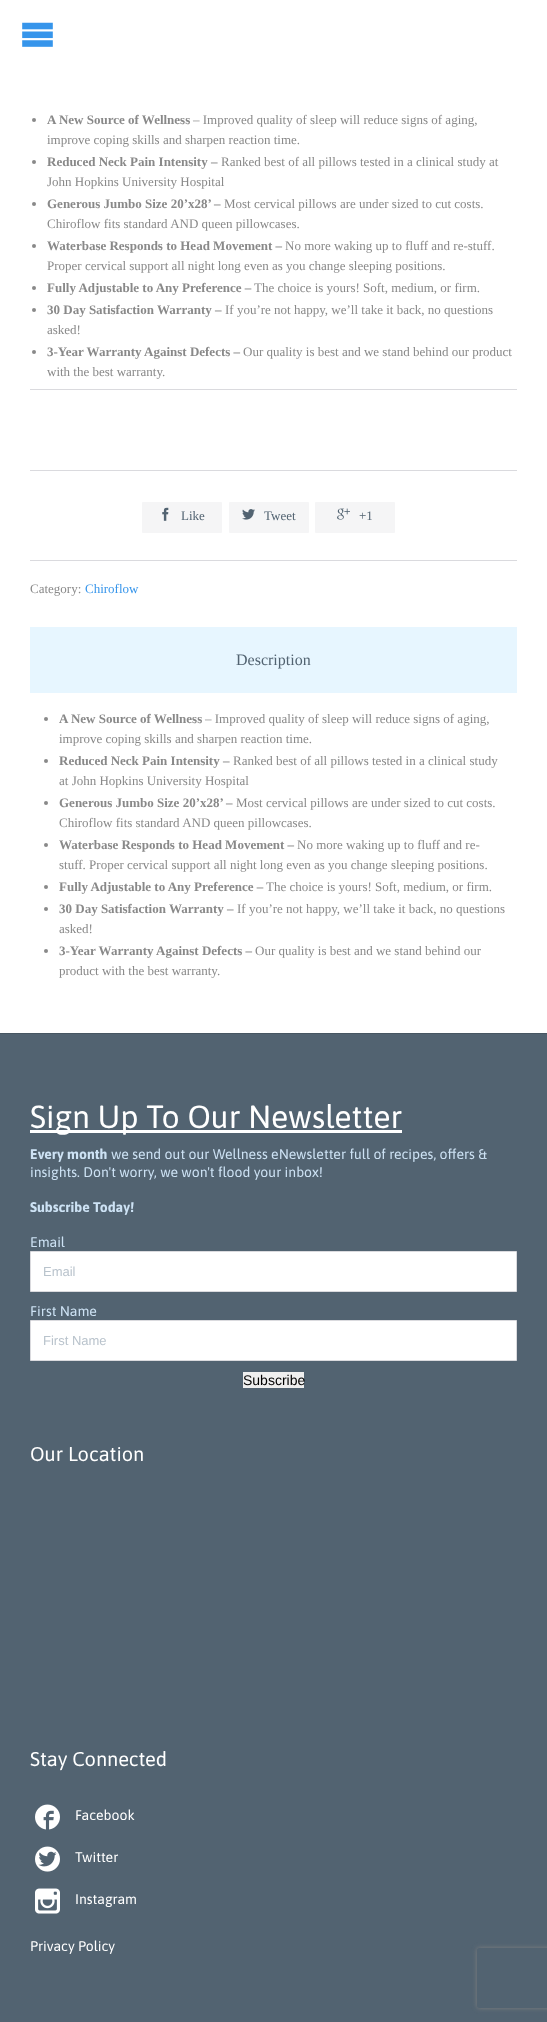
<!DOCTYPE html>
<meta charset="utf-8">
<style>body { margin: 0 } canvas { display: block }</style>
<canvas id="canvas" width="547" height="2022"></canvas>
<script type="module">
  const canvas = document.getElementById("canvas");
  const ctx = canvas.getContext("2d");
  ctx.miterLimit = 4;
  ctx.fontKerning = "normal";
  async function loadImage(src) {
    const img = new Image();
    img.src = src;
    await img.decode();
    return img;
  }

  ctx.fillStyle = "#ffffff";
  ctx.fillRect(0, 0, 547, 2022);
  ctx.drawImage(await loadImage("img1.png"), 22, 22, 31, 25);
  ctx.fillStyle = "#898989";
  ctx.beginPath();
  ctx.arc(34, 120, 2, 0, Math.PI * 2);
  ctx.fill();
  ctx.font = "bold 13px Liberation Serif";
  ctx.fillText("A New Source of Wellness", 47, 124);
  ctx.font = "13px Liberation Serif";
  ctx.fillText("– Improved quality of sleep will reduce signs of aging,", 193, 124);
  ctx.fillText("improve coping skills and sharpen reaction time.", 47, 144);
  ctx.beginPath();
  ctx.arc(34, 162, 2, 0, Math.PI * 2);
  ctx.fill();
  ctx.font = "bold 13px Liberation Serif";
  ctx.fillText("Reduced Neck Pain Intensity –", 47, 166);
  ctx.font = "13px Liberation Serif";
  ctx.fillText("Ranked best of all pillows tested in a clinical study at", 221, 166);
  ctx.fillText("John Hopkins University Hospital", 47, 186);
  ctx.beginPath();
  ctx.arc(34, 204, 2, 0, Math.PI * 2);
  ctx.fill();
  ctx.font = "bold 13px Liberation Serif";
  ctx.fillText("Generous Jumbo Size 20’x28’ –", 47, 208);
  ctx.font = "13px Liberation Serif";
  ctx.fillText("Most cervical pillows are under sized to cut costs.", 224, 208);
  ctx.fillText("Chiroflow fits standard AND queen pillowcases.", 47, 228);
  ctx.beginPath();
  ctx.arc(34, 246, 2, 0, Math.PI * 2);
  ctx.fill();
  ctx.font = "bold 13px Liberation Serif";
  ctx.fillText("Waterbase Responds to Head Movement –", 47, 250);
  ctx.font = "13px Liberation Serif";
  ctx.fillText("No more waking up to fluff and re-stuff.", 285, 250);
  ctx.fillText("Proper cervical support all night long even as you change sleeping positions.", 47, 270);
  ctx.beginPath();
  ctx.arc(34, 288, 2, 0, Math.PI * 2);
  ctx.fill();
  ctx.font = "bold 13px Liberation Serif";
  ctx.fillText("Fully Adjustable to Any Preference –", 47, 292);
  ctx.font = "13px Liberation Serif";
  ctx.fillText("The choice is yours! Soft, medium, or firm.", 254, 292);
  ctx.beginPath();
  ctx.arc(34, 310, 2, 0, Math.PI * 2);
  ctx.fill();
  ctx.font = "bold 13px Liberation Serif";
  ctx.fillText("30 Day Satisfaction Warranty –", 47, 314);
  ctx.font = "13px Liberation Serif";
  ctx.fillText("If you’re not happy, we’ll take it back, no questions", 225, 314);
  ctx.fillText("asked!", 47, 334);
  ctx.beginPath();
  ctx.arc(34, 352, 2, 0, Math.PI * 2);
  ctx.fill();
  ctx.font = "bold 13px Liberation Serif";
  ctx.fillText("3-Year Warranty Against Defects –", 47, 356);
  ctx.font = "13px Liberation Serif";
  ctx.fillText("Our quality is best and we stand behind our product", 243, 356);
  ctx.fillText("with the best warranty.", 47, 376);
  ctx.fillStyle = "#dadade";
  ctx.fillRect(30, 389, 487, 1);
  ctx.fillRect(30, 470, 487, 1);
  ctx.fillStyle = "#f5f5f6";
  ctx.beginPath();
  ctx.roundRect(142, 502, 80, 31, 1);
  ctx.fill();
  ctx.drawImage(await loadImage("img2.png"), 162, 507, 7, 14);
  ctx.fillStyle = "#526371";
  ctx.fillText("Like", 181, 520);
  ctx.fillStyle = "#f5f5f6";
  ctx.beginPath();
  ctx.roundRect(229, 502, 80, 31, 1);
  ctx.fill();
  ctx.drawImage(await loadImage("img3.png"), 242, 509, 13, 11);
  ctx.fillStyle = "#526371";
  ctx.fillText("Tweet", 264, 520);
  ctx.fillStyle = "#f5f5f6";
  ctx.beginPath();
  ctx.roundRect(315, 502, 80, 31, 1);
  ctx.fill();
  ctx.drawImage(await loadImage("img4.png"), 337, 508, 13, 12);
  ctx.fillStyle = "#526371";
  ctx.fillText("+1", 359, 520);
  ctx.fillStyle = "#dadade";
  ctx.fillRect(30, 560, 487, 1);
  ctx.fillStyle = "#898989";
  ctx.fillText("Category:", 30, 593);
  ctx.fillStyle = "#3695eb";
  ctx.fillText("Chiroflow", 85, 593);
  ctx.fillStyle = "#e7f6ff";
  ctx.fillRect(30, 627, 487, 66);
  ctx.font = "16px Liberation Serif";
  ctx.fillStyle = "#526371";
  ctx.fillText("Description", 236, 665);
  ctx.fillStyle = "#898989";
  ctx.beginPath();
  ctx.arc(46, 719, 2, 0, Math.PI * 2);
  ctx.fill();
  ctx.font = "bold 13px Liberation Serif";
  ctx.fillText("A New Source of Wellness", 59, 723);
  ctx.font = "13px Liberation Serif";
  ctx.fillText("– Improved quality of sleep will reduce signs of aging,", 205, 723);
  ctx.fillText("improve coping skills and sharpen reaction time.", 59, 743);
  ctx.beginPath();
  ctx.arc(46, 761, 2, 0, Math.PI * 2);
  ctx.fill();
  ctx.font = "bold 13px Liberation Serif";
  ctx.fillText("Reduced Neck Pain Intensity –", 59, 765);
  ctx.font = "13px Liberation Serif";
  ctx.fillText("Ranked best of all pillows tested in a clinical study", 233, 765);
  ctx.fillText("at John Hopkins University Hospital", 59, 785);
  ctx.beginPath();
  ctx.arc(46, 803, 2, 0, Math.PI * 2);
  ctx.fill();
  ctx.font = "bold 13px Liberation Serif";
  ctx.fillText("Generous Jumbo Size 20’x28’ –", 59, 807);
  ctx.font = "13px Liberation Serif";
  ctx.fillText("Most cervical pillows are under sized to cut costs.", 236, 807);
  ctx.fillText("Chiroflow fits standard AND queen pillowcases.", 59, 827);
  ctx.beginPath();
  ctx.arc(46, 845, 2, 0, Math.PI * 2);
  ctx.fill();
  ctx.font = "bold 13px Liberation Serif";
  ctx.fillText("Waterbase Responds to Head Movement –", 59, 849);
  ctx.font = "13px Liberation Serif";
  ctx.fillText("No more waking up to fluff and re-", 297, 849);
  ctx.fillText("stuff. Proper cervical support all night long even as you change sleeping positions.", 59, 869);
  ctx.beginPath();
  ctx.arc(46, 887, 2, 0, Math.PI * 2);
  ctx.fill();
  ctx.font = "bold 13px Liberation Serif";
  ctx.fillText("Fully Adjustable to Any Preference –", 59, 891);
  ctx.font = "13px Liberation Serif";
  ctx.fillText("The choice is yours! Soft, medium, or firm.", 266, 891);
  ctx.beginPath();
  ctx.arc(46, 909, 2, 0, Math.PI * 2);
  ctx.fill();
  ctx.font = "bold 13px Liberation Serif";
  ctx.fillText("30 Day Satisfaction Warranty –", 59, 913);
  ctx.font = "13px Liberation Serif";
  ctx.fillText("If you’re not happy, we’ll take it back, no questions", 237, 913);
  ctx.fillText("asked!", 59, 933);
  ctx.beginPath();
  ctx.arc(46, 951, 2, 0, Math.PI * 2);
  ctx.fill();
  ctx.font = "bold 13px Liberation Serif";
  ctx.fillText("3-Year Warranty Against Defects –", 59, 955);
  ctx.font = "13px Liberation Serif";
  ctx.fillText("Our quality is best and we stand behind our", 255, 955);
  ctx.fillText("product with the best warranty.", 59, 975);
  ctx.fillStyle = "#526371";
  ctx.fillRect(0, 1034, 547, 988);
  ctx.fillStyle = "#475662";
  ctx.fillRect(0, 1033, 547, 1);
  ctx.fillStyle = "#ffffff";
  ctx.fillRect(30, 1130, 372, 3);
  ctx.font = "32px Asap";
  ctx.fillText("Sign Up To Our Newsletter", 30, 1128);
  ctx.font = "bold 14px Asap";
  ctx.fillStyle = "#cde2f4";
  ctx.fillText("Every month", 30, 1159);
  ctx.font = "14px Asap";
  ctx.fillText("we send out our Wellness eNewsletter full of recipes, offers &", 111, 1159);
  ctx.fillText("insights. Don't worry, we won't flood your inbox!", 30, 1177);
  ctx.font = "bold 14px Asap";
  ctx.fillText("Subscribe Today!", 30, 1212);
  ctx.font = "14px Asap";
  ctx.fillText("Email", 30, 1247);
  ctx.fillStyle = "#ffffff";
  ctx.beginPath();
  ctx.rect(30.5, 1251.5, 486, 40);
  ctx.fill();
  ctx.strokeStyle = "#dadade";
  ctx.stroke();
  ctx.font = "13px Liberation Sans";
  ctx.fillStyle = "#b9c3cc";
  ctx.fillText("Email", 43, 1276);
  ctx.font = "14px Asap";
  ctx.fillStyle = "#cde2f4";
  ctx.fillText("First Name", 30, 1316);
  ctx.fillStyle = "#ffffff";
  ctx.beginPath();
  ctx.rect(30.5, 1320.5, 486, 40);
  ctx.fill();
  ctx.stroke();
  ctx.font = "13px Liberation Sans";
  ctx.fillStyle = "#b9c3cc";
  ctx.fillText("First Name", 43, 1345);
  ctx.fillStyle = "#efefef";
  ctx.fillRect(243, 1372, 61, 16);
  ctx.font = "14px Liberation Sans";
  ctx.fillStyle = "#000000";
  ctx.fillText("Subscribe", 243, 1385);
  ctx.font = "20px Asap";
  ctx.fillStyle = "#ffffff";
  ctx.fillText("Our Location", 30, 1461);
  ctx.fillText("Stay Connected", 30, 1766);
  ctx.drawImage(await loadImage("img5.png"), 35, 1804, 25, 26);
  ctx.font = "14px Asap";
  ctx.fillText("Facebook", 75, 1820);
  ctx.drawImage(await loadImage("img6.png"), 35, 1846, 25, 26);
  ctx.fillText("Twitter", 75, 1862);
  ctx.drawImage(await loadImage("img7.png"), 35, 1888, 25, 26);
  ctx.fillText("Instagram", 75, 1904);
  ctx.fillText("Privacy Policy", 30, 1951);
  ctx.save();
  ctx.beginPath();
  ctx.moveTo(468, 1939);
  ctx.lineTo(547, 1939);
  ctx.lineTo(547, 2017);
  ctx.lineTo(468, 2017);
  ctx.closePath();
  ctx.moveTo(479, 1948);
  ctx.lineTo(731, 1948);
  ctx.bezierCurveTo(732, 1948, 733, 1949, 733, 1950);
  ctx.lineTo(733, 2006);
  ctx.bezierCurveTo(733, 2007, 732, 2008, 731, 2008);
  ctx.lineTo(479, 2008);
  ctx.bezierCurveTo(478, 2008, 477, 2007, 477, 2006);
  ctx.lineTo(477, 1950);
  ctx.bezierCurveTo(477, 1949, 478, 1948, 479, 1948);
  ctx.closePath();
  ctx.clip("evenodd");
  ctx.fillStyle = "#808080";
  ctx.filter = "blur(2.5px)";
  ctx.beginPath();
  ctx.roundRect(477, 1948, 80, 60, 2);
  ctx.fill();
  ctx.filter = "none";
  ctx.restore();
</script>
